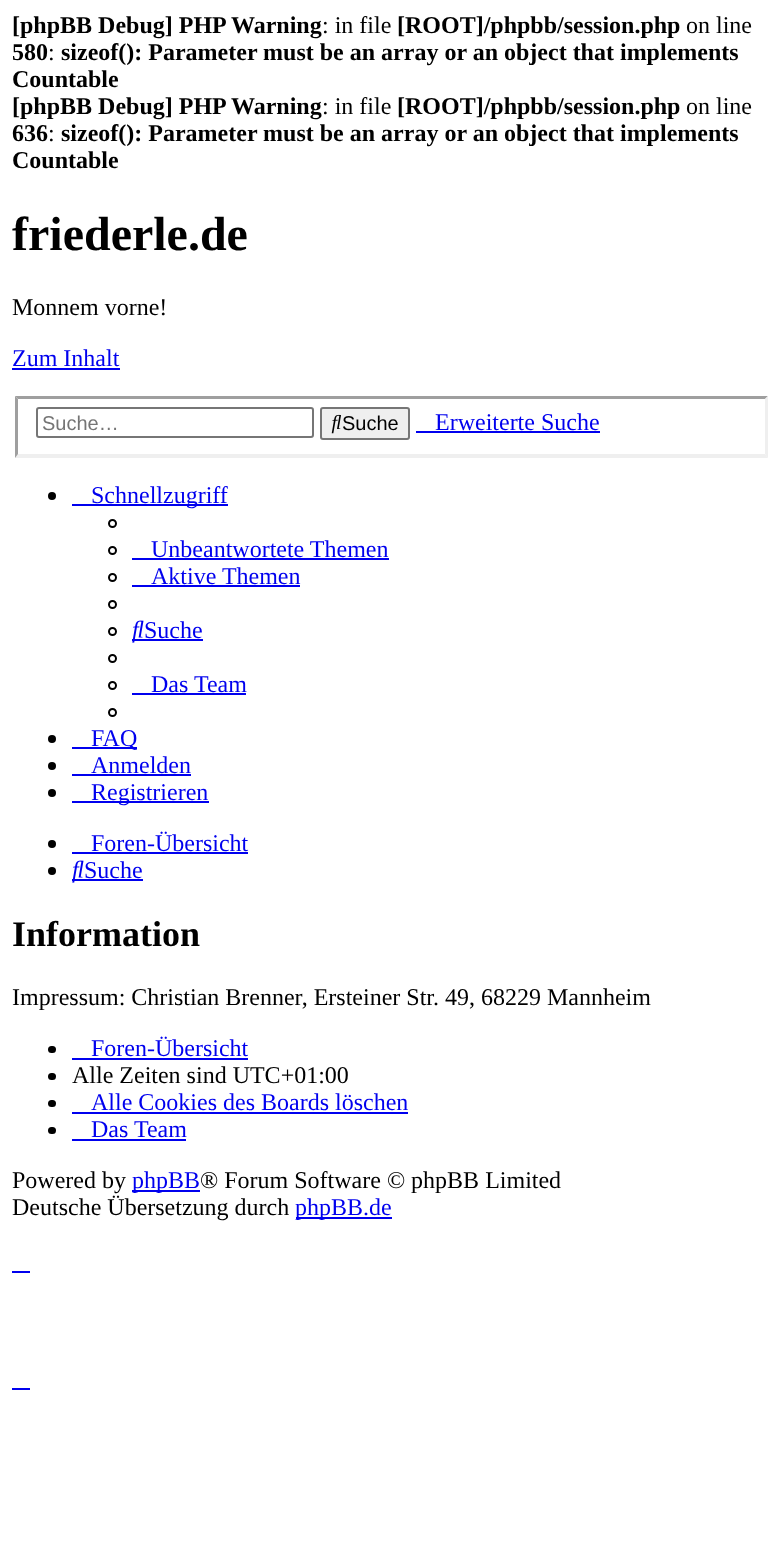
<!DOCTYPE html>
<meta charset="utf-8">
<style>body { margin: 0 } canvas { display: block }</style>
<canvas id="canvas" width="782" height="1568"></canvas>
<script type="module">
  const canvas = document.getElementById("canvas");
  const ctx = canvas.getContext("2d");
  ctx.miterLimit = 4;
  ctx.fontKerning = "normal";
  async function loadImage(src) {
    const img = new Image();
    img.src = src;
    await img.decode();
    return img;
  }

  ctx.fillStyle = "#ffffff";
  ctx.fillRect(0, 0, 782, 1568);
  ctx.font = "bold 24px Liberation Serif";
  ctx.fillStyle = "#000000";
  ctx.fillText("[phpBB Debug] PHP Warning", 12, 33);
  ctx.font = "24px Liberation Serif";
  ctx.fillText(": in file", 322, 33);
  ctx.font = "bold 24px Liberation Serif";
  ctx.fillText("[ROOT]/phpbb/session.php", 397, 33);
  ctx.font = "24px Liberation Serif";
  ctx.fillText("on line", 686, 33);
  ctx.font = "bold 24px Liberation Serif";
  ctx.fillText("580", 12, 60);
  ctx.font = "24px Liberation Serif";
  ctx.fillText(":", 48, 60);
  ctx.font = "bold 24px Liberation Serif";
  ctx.fillText("sizeof(): Parameter must be an array or an object that implements", 61, 60);
  ctx.fillText("Countable", 12, 87);
  ctx.fillText("[phpBB Debug] PHP Warning", 12, 114);
  ctx.font = "24px Liberation Serif";
  ctx.fillText(": in file", 322, 114);
  ctx.font = "bold 24px Liberation Serif";
  ctx.fillText("[ROOT]/phpbb/session.php", 397, 114);
  ctx.font = "24px Liberation Serif";
  ctx.fillText("on line", 686, 114);
  ctx.font = "bold 24px Liberation Serif";
  ctx.fillText("636", 12, 141);
  ctx.font = "24px Liberation Serif";
  ctx.fillText(":", 48, 141);
  ctx.font = "bold 24px Liberation Serif";
  ctx.fillText("sizeof(): Parameter must be an array or an object that implements", 61, 141);
  ctx.fillText("Countable", 12, 168);
  ctx.font = "bold 48px Liberation Serif";
  ctx.fillText("friederle.de", 12, 250);
  ctx.font = "24px Liberation Serif";
  ctx.fillText("Monnem vorne!", 12, 315);
  ctx.fillStyle = "#0000ee";
  ctx.fillText("Zum Inhalt", 12, 366);
  ctx.fillRect(12, 368, 108, 2);
  ctx.fillStyle = "#9f9f9f";
  ctx.beginPath();
  ctx.moveTo(15, 396);
  ctx.lineTo(768, 396);
  ctx.lineTo(765, 399);
  ctx.lineTo(18, 399);
  ctx.closePath();
  ctx.fill();
  ctx.fillStyle = "#efefef";
  ctx.beginPath();
  ctx.moveTo(768, 396);
  ctx.lineTo(768, 458);
  ctx.lineTo(765, 454);
  ctx.lineTo(765, 399);
  ctx.closePath();
  ctx.fill();
  ctx.beginPath();
  ctx.moveTo(768, 458);
  ctx.lineTo(15, 458);
  ctx.lineTo(18, 454);
  ctx.lineTo(765, 454);
  ctx.closePath();
  ctx.fill();
  ctx.fillStyle = "#9f9f9f";
  ctx.beginPath();
  ctx.moveTo(15, 458);
  ctx.lineTo(15, 396);
  ctx.lineTo(18, 399);
  ctx.lineTo(18, 454);
  ctx.closePath();
  ctx.fill();
  ctx.beginPath();
  ctx.roundRect(37, 408, 276, 29, 2);
  ctx.strokeStyle = "#767676";
  ctx.lineWidth = 2;
  ctx.stroke();
  ctx.font = "20px Liberation Sans";
  ctx.fillStyle = "#757575";
  ctx.fillText("Suche…", 42, 430);
  ctx.fillStyle = "#efefef";
  ctx.beginPath();
  ctx.roundRect(321, 408, 88, 31, 2);
  ctx.fill();
  ctx.stroke();
  ctx.drawImage(await loadImage("img1.png"), 331, 414, 10, 20);
  ctx.fillStyle = "#000000";
  ctx.fillText("Suche", 342, 430);
  ctx.font = "24px Liberation Serif";
  ctx.fillStyle = "#0000ee";
  ctx.fillText("Erweiterte Suche", 435, 430);
  ctx.fillRect(416, 431, 184, 2);
  ctx.fillStyle = "#000000";
  ctx.beginPath();
  ctx.arc(52, 496, 4, 0, Math.PI * 2);
  ctx.fill();
  ctx.fillStyle = "#0000ee";
  ctx.fillRect(72, 504, 156, 2);
  ctx.fillText("Schnellzugriff", 91, 503);
  ctx.beginPath();
  ctx.arc(112.5, 523.5, 3.5, 0, Math.PI * 2);
  ctx.strokeStyle = "#000000";
  ctx.stroke();
  ctx.beginPath();
  ctx.arc(112.5, 550.5, 3.5, 0, Math.PI * 2);
  ctx.stroke();
  ctx.fillText("Unbeantwortete Themen", 151, 557);
  ctx.fillRect(132, 558, 257, 2);
  ctx.beginPath();
  ctx.arc(112.5, 577.5, 3.5, 0, Math.PI * 2);
  ctx.stroke();
  ctx.fillText("Aktive Themen", 151, 584);
  ctx.fillRect(132, 585, 168, 2);
  ctx.beginPath();
  ctx.arc(112.5, 604.5, 3.5, 0, Math.PI * 2);
  ctx.stroke();
  ctx.beginPath();
  ctx.arc(112.5, 631.5, 3.5, 0, Math.PI * 2);
  ctx.stroke();
  ctx.fillRect(132, 639, 71, 2);
  ctx.drawImage(await loadImage("img2.png"), 132, 620, 12, 23);
  ctx.fillText("Suche", 144, 638);
  ctx.beginPath();
  ctx.arc(112.5, 658.5, 3.5, 0, Math.PI * 2);
  ctx.stroke();
  ctx.beginPath();
  ctx.arc(112.5, 685.5, 3.5, 0, Math.PI * 2);
  ctx.stroke();
  ctx.fillText("Das Team", 151, 692);
  ctx.fillRect(132, 693, 114, 2);
  ctx.beginPath();
  ctx.arc(112.5, 712.5, 3.5, 0, Math.PI * 2);
  ctx.stroke();
  ctx.fillStyle = "#000000";
  ctx.beginPath();
  ctx.arc(52, 739, 4, 0, Math.PI * 2);
  ctx.fill();
  ctx.fillStyle = "#0000ee";
  ctx.fillRect(72, 747, 65, 2);
  ctx.fillText("FAQ", 91, 746);
  ctx.fillStyle = "#000000";
  ctx.beginPath();
  ctx.arc(52, 766, 4, 0, Math.PI * 2);
  ctx.fill();
  ctx.fillStyle = "#0000ee";
  ctx.fillText("Anmelden", 91, 773);
  ctx.fillRect(72, 774, 119, 2);
  ctx.fillStyle = "#000000";
  ctx.beginPath();
  ctx.arc(52, 793, 4, 0, Math.PI * 2);
  ctx.fill();
  ctx.fillStyle = "#0000ee";
  ctx.fillRect(72, 801, 137, 2);
  ctx.fillText("Registrieren", 91, 800);
  ctx.fillStyle = "#000000";
  ctx.beginPath();
  ctx.arc(52, 844, 4, 0, Math.PI * 2);
  ctx.fill();
  ctx.fillStyle = "#0000ee";
  ctx.fillText("Foren-Übersicht", 91, 851);
  ctx.fillRect(72, 852, 176, 2);
  ctx.fillStyle = "#000000";
  ctx.beginPath();
  ctx.arc(52, 871, 4, 0, Math.PI * 2);
  ctx.fill();
  ctx.fillStyle = "#0000ee";
  ctx.fillRect(72, 879, 71, 2);
  ctx.drawImage(await loadImage("img2.png"), 72, 860, 12, 23);
  ctx.fillText("Suche", 84, 878);
  ctx.font = "bold 36px Liberation Serif";
  ctx.fillStyle = "#000000";
  ctx.fillText("Information", 12, 946);
  ctx.font = "24px Liberation Serif";
  ctx.fillText("Impressum: Christian Brenner, Ersteiner Str. 49, 68229 Mannheim", 12, 1005);
  ctx.beginPath();
  ctx.roundRect(48, 1046, 8, 7, 3.5);
  ctx.fill();
  ctx.fillStyle = "#0000ee";
  ctx.fillText("Foren-Übersicht", 91, 1056);
  ctx.fillRect(72, 1058, 176, 2);
  ctx.fillStyle = "#000000";
  ctx.beginPath();
  ctx.roundRect(48, 1073, 8, 7, 3.5);
  ctx.fill();
  ctx.fillText("Alle Zeiten sind UTC+01:00", 72, 1083);
  ctx.beginPath();
  ctx.roundRect(48, 1100, 8, 7, 3.5);
  ctx.fill();
  ctx.fillStyle = "#0000ee";
  ctx.fillText("Alle Cookies des Boards löschen", 91, 1110);
  ctx.fillRect(72, 1112, 336, 2);
  ctx.fillStyle = "#000000";
  ctx.beginPath();
  ctx.roundRect(48, 1127, 8, 7, 3.5);
  ctx.fill();
  ctx.fillStyle = "#0000ee";
  ctx.fillText("Das Team", 91, 1137);
  ctx.fillRect(72, 1139, 114, 2);
  ctx.fillStyle = "#000000";
  ctx.fillText("Powered by", 12, 1188);
  ctx.fillStyle = "#0000ee";
  ctx.fillRect(132, 1190, 68, 2);
  ctx.fillText("phpBB", 132, 1188);
  ctx.fillStyle = "#000000";
  ctx.fillText("® Forum Software © phpBB Limited", 200, 1188);
  ctx.fillText("Deutsche Übersetzung durch", 12, 1215);
  ctx.fillStyle = "#0000ee";
  ctx.fillRect(296, 1217, 96, 2);
  ctx.fillText("phpBB.de", 295, 1215);
  ctx.fillRect(12, 1271, 18, 2);
  ctx.fillRect(12, 1388, 18, 2);
</script>
